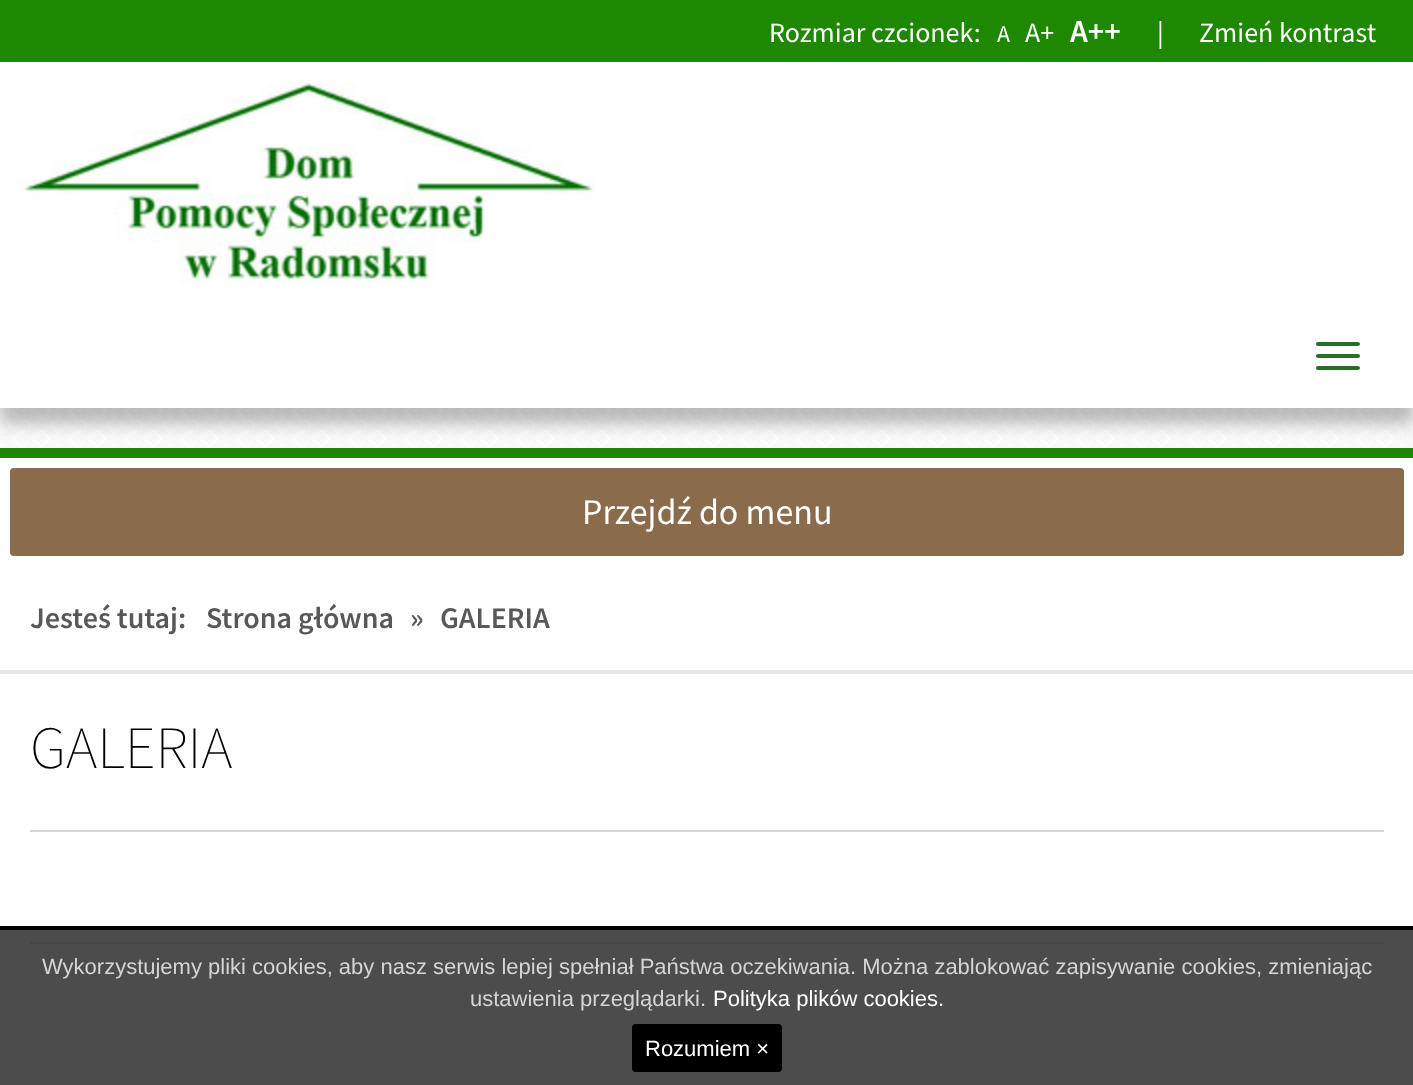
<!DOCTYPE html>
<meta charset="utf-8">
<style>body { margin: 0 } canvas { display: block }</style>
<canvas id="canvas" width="1413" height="1085"></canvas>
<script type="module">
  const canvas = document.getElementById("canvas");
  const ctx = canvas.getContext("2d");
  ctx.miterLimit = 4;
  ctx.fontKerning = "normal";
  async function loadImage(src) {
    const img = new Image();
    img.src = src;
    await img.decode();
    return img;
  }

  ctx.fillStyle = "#ffffff";
  ctx.fillRect(0, 0, 1413, 1085);
  ctx.drawImage(await loadImage("img1.png"), 0, 408, 1413, 40);
  ctx.fillStyle = "#1e8800";
  ctx.fillRect(0, 0, 1413, 62);
  ctx.font = "28px Source Sans Pro";
  ctx.fillStyle = "#ffffff";
  ctx.fillText("Rozmiar czcionek:", 769, 42);
  ctx.font = "24px Source Sans Pro";
  ctx.fillText("A", 997, 42);
  ctx.font = "28px Source Sans Pro";
  ctx.fillText("A+", 1025, 42);
  ctx.font = "600 32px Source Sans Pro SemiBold";
  ctx.fillText("A++", 1070, 42);
  ctx.font = "28px Source Sans Pro";
  ctx.fillText("|", 1157, 42);
  ctx.fillText("Zmień kontrast", 1199, 42);
  ctx.fillStyle = "#1d8703";
  ctx.fillRect(0, 448, 1413, 10);
  ctx.fillStyle = "rgba(0, 0, 0, 0.25)";
  ctx.filter = "blur(8px)";
  ctx.beginPath();
  ctx.rect(0, 78, 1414, 346);
  ctx.fill();
  ctx.filter = "none";
  ctx.fillStyle = "#ffffff";
  ctx.fillRect(0, 64, 1413, 344);
  ctx.drawImage(await loadImage("img2.png"), 20, 82, 576, 202);
  ctx.fillStyle = "#277025";
  ctx.beginPath();
  ctx.roundRect(1316, 342, 44, 4, 2);
  ctx.fill();
  ctx.beginPath();
  ctx.roundRect(1316, 354, 44, 4, 2);
  ctx.fill();
  ctx.beginPath();
  ctx.roundRect(1316, 366, 44, 4, 2);
  ctx.fill();
  ctx.fillStyle = "#8a6c4d";
  ctx.beginPath();
  ctx.roundRect(10, 468, 1394, 88, 4);
  ctx.fill();
  ctx.font = "36px Source Sans Pro";
  ctx.fillStyle = "#ffffff";
  ctx.fillText("Przejdź do menu", 582, 524);
  ctx.fillStyle = "#e8e8e8";
  ctx.fillRect(0, 670, 1413, 4);
  ctx.font = "600 30px Source Sans Pro SemiBold";
  ctx.fillStyle = "#585858";
  ctx.fillText("Jesteś tutaj:", 30, 628);
  ctx.fillText("Strona główna", 206, 628);
  ctx.fillText("»", 410, 628);
  ctx.fillText("GALERIA", 440, 628);
  ctx.fillStyle = "#d5d5d5";
  ctx.fillRect(30, 830, 1354, 2);
  ctx.font = "200 60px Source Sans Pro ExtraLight";
  ctx.fillStyle = "#000000";
  ctx.fillText("GALERIA", 30, 768);
  ctx.fillStyle = "#ebebeb";
  ctx.fillRect(30, 942, 1354, 2);
  ctx.fillStyle = "rgba(0, 0, 0, 0.7)";
  ctx.fillRect(0, 930, 1413, 155);
  ctx.fillStyle = "#000000";
  ctx.fillRect(0, 926, 1413, 4);
  ctx.font = "22px Liberation Sans";
  ctx.fillStyle = "#d5d5d5";
  ctx.fillText("Wykorzystujemy pliki cookies, aby nasz serwis lepiej spełniał Państwa oczekiwania. Można zablokować zapisywanie cookies, zmieniając", 42, 974);
  ctx.fillText("ustawienia przeglądarki.", 470, 1006);
  ctx.fillStyle = "#ffffff";
  ctx.fillText("Polityka plików cookies.", 713, 1006);
  ctx.fillStyle = "#000000";
  ctx.beginPath();
  ctx.roundRect(632, 1024, 150, 48, 4);
  ctx.fill();
  ctx.fillStyle = "#ffffff";
  ctx.fillText("Rozumiem ×", 645, 1056);
</script>
